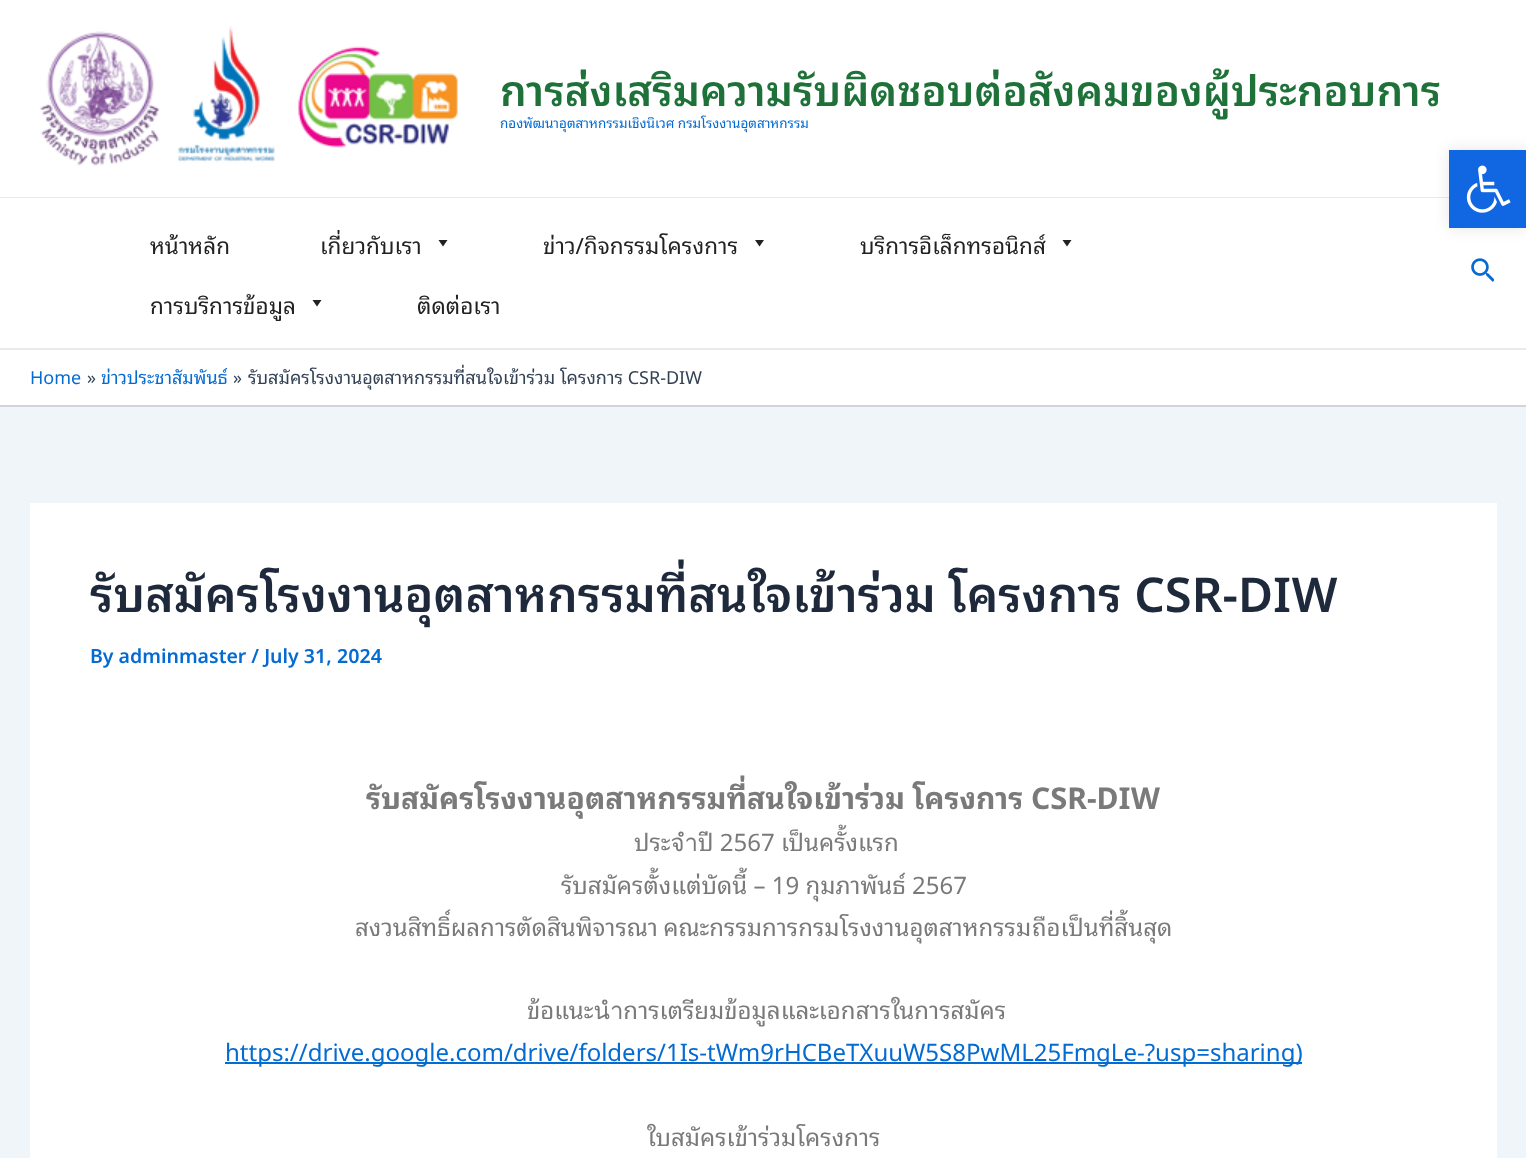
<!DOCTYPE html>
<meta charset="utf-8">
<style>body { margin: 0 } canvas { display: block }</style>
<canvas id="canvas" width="1526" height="1158"></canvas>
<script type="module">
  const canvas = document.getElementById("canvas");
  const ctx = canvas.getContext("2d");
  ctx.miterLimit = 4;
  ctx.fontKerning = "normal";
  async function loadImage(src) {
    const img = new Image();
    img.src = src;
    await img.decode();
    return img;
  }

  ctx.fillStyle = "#f0f5fa";
  ctx.fillRect(0, 0, 1526, 1158);
  ctx.fillStyle = "#ffffff";
  ctx.fillRect(0, 0, 1526, 197);
  ctx.fillStyle = "#eaeaea";
  ctx.fillRect(0, 197, 1449, 1);
  ctx.drawImage(await loadImage("img1.png"), 40, 26, 418, 140);
  ctx.font = "600 42px Noto Sans Thai Looped";
  ctx.fillStyle = "#1e7239";
  ctx.fillText("การส่งเสริมความรับผิดชอบต่อสังคมของผู้ประกอบการ", 500, 106);
  ctx.font = "13.5px Noto Sans Thai Looped";
  ctx.fillStyle = "#046bd2";
  ctx.fillText("กองพัฒนาอุตสาหกรรมเชิงนิเวศ กรมโรงงานอุตสาหกรรม", 500, 128);
  ctx.fillStyle = "#ffffff";
  ctx.fillRect(0, 198, 1526, 150);
  ctx.fillStyle = "#eaeaea";
  ctx.fillRect(0, 348, 1526, 2);
  ctx.font = "22.5px Noto Sans Thai Looped";
  ctx.fillStyle = "#222222";
  ctx.fillText("หน้าหลัก", 150, 254);
  ctx.fillText("เกี่ยวกับเรา", 320, 254);
  ctx.beginPath();
  ctx.moveTo(447.5, 240);
  ctx.lineTo(443, 246.5);
  ctx.lineTo(438.5, 240);
  ctx.closePath();
  ctx.fill();
  ctx.fillText("ข่าว/กิจกรรมโครงการ", 543, 254);
  ctx.beginPath();
  ctx.moveTo(764, 240);
  ctx.lineTo(759.5, 246.5);
  ctx.lineTo(755, 240);
  ctx.closePath();
  ctx.fill();
  ctx.fillText("บริการอิเล็กทรอนิกส์", 860, 254);
  ctx.beginPath();
  ctx.moveTo(1071.5, 240);
  ctx.lineTo(1067, 246.5);
  ctx.lineTo(1062.5, 240);
  ctx.closePath();
  ctx.fill();
  ctx.fillText("การบริการข้อมูล", 150, 314);
  ctx.beginPath();
  ctx.moveTo(321.5, 300);
  ctx.lineTo(317, 306.5);
  ctx.lineTo(312.5, 300);
  ctx.closePath();
  ctx.fill();
  ctx.fillText("ติดต่อเรา", 417, 314);
  ctx.drawImage(await loadImage("img2.png"), 1471, 258, 23, 24);
  ctx.fillStyle = "#ffffff";
  ctx.fillRect(0, 350, 1526, 55);
  ctx.fillStyle = "#d1d5db";
  ctx.fillRect(0, 405, 1526, 2);
  ctx.font = "18px Noto Sans Thai Looped";
  ctx.fillStyle = "#046bd2";
  ctx.fillText("Home", 30, 384);
  ctx.fillStyle = "#334155";
  ctx.fillText("»", 87, 384);
  ctx.fillStyle = "#046bd2";
  ctx.fillText("ข่าวประชาสัมพันธ์", 101, 384);
  ctx.fillStyle = "#334155";
  ctx.fillText("»", 233, 384);
  ctx.fillText("รับสมัครโรงงานอุตสาหกรรมที่สนใจเข้าร่วม โครงการ CSR-DIW", 248, 384);
  ctx.fillStyle = "#ffffff";
  ctx.fillRect(30, 503, 1467, 655);
  ctx.font = "600 48px Noto Sans Thai Looped";
  ctx.fillStyle = "#1e293b";
  ctx.fillText("รับสมัครโรงงานอุตสาหกรรมที่สนใจเข้าร่วม โครงการ CSR-DIW", 90, 612);
  ctx.font = "600 19.5px Noto Sans Thai Looped";
  ctx.fillStyle = "#046bd2";
  ctx.fillText("By adminmaster / July 31, 2024", 90, 663);
  ctx.font = "bold 30px Noto Sans Thai Looped";
  ctx.fillStyle = "#7a7a7a";
  ctx.fillText("รับสมัครโรงงานอุตสาหกรรมที่สนใจเข้าร่วม โครงการ CSR-DIW", 366, 809);
  ctx.font = "24px Noto Sans Thai Looped";
  ctx.fillText("ประจำปี 2567 เป็นครั้งแรก", 634, 851);
  ctx.fillText("รับสมัครตั้งแต่บัดนี้ – 19 กุมภาพันธ์ 2567", 561, 894);
  ctx.wordSpacing = "-1px";
  ctx.fillText("สงวนสิทธิ์ผลการตัดสินพิจารณา คณะกรรมการกรมโรงงานอุตสาหกรรม", 355, 936);
  ctx.wordSpacing = "0px";
  ctx.fillText("ถือเป็นที่สิ้นสุด", 1032, 936);
  ctx.fillText("ข้อแนะนำการเตรียมข้อมูลและเอกสารในการสมัคร", 527, 1019);
  ctx.fillStyle = "#046bd2";
  ctx.fillRect(225, 1062, 1077, 2);
  ctx.fillText("https://drive.google.com/drive/folders/1Is-tWm9rHCBeTXuuW5S8PwML25FmgLe-?usp=sharing)", 225, 1061);
  ctx.fillStyle = "#7a7a7a";
  ctx.fillText("ใบสมัครเข้าร่วมโครงการ", 647, 1146);
  ctx.fillStyle = "rgba(0, 0, 0, 0.1)";
  ctx.filter = "blur(7.5px)";
  ctx.beginPath();
  ctx.rect(1449, 150, 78, 78);
  ctx.fill();
  ctx.filter = "none";
  ctx.fillStyle = "#1167e1";
  ctx.fillRect(1449, 150, 77, 78);
  ctx.drawImage(await loadImage("img3.png"), 1466, 165, 45, 48);
</script>
